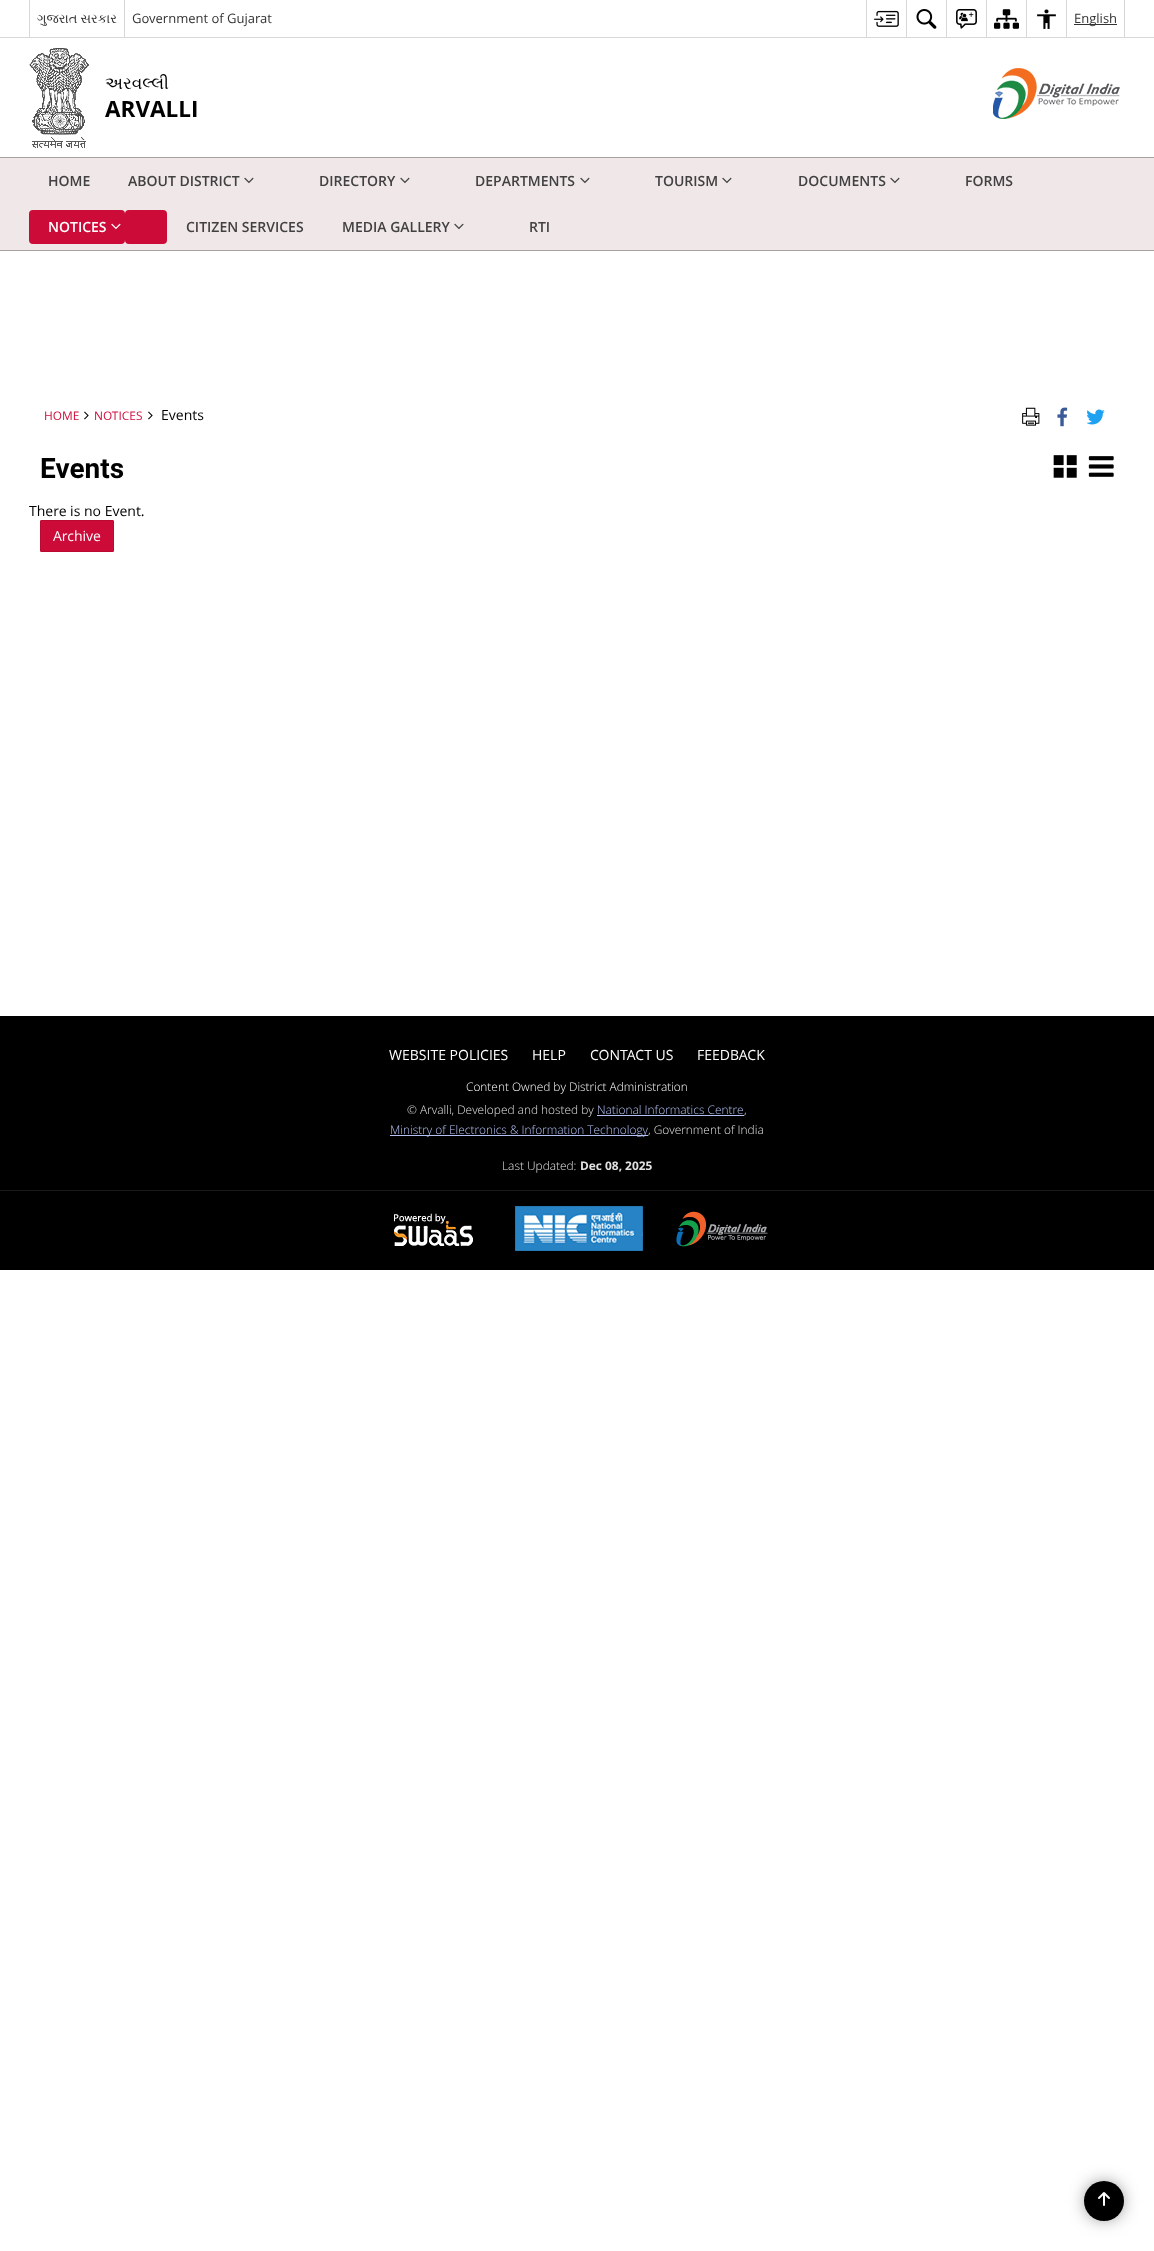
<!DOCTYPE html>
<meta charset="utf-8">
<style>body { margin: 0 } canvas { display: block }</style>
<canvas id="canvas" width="1154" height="2251"></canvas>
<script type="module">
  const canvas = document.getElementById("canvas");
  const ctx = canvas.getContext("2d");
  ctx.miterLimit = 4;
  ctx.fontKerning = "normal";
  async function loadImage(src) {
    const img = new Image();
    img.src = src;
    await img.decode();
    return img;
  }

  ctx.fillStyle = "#ffffff";
  ctx.fillRect(0, 0, 1154, 2251);
  ctx.fillStyle = "#d8d8d8";
  ctx.fillRect(0, 37, 1154, 1);
  ctx.fillRect(29, 0, 1, 37);
  ctx.font = "13px FreeSerif";
  ctx.fillStyle = "#333333";
  ctx.fillText("ગુજરાત સરકાર", 37, 23);
  ctx.fillStyle = "#d8d8d8";
  ctx.fillRect(124, 0, 1, 37);
  ctx.font = "13px Open Sans";
  ctx.fillStyle = "#333333";
  ctx.fillText("Government of Gujarat", 132, 23);
  ctx.fillStyle = "#d8d8d8";
  ctx.fillRect(866, 0, 1, 37);
  ctx.drawImage(await loadImage("img1.png"), 874, 10, 25, 17);
  ctx.fillRect(906, 0, 1, 37);
  ctx.drawImage(await loadImage("img2.png"), 916, 9, 21, 20);
  ctx.fillRect(946, 0, 1, 37);
  ctx.drawImage(await loadImage("img3.png"), 956, 9, 21, 20);
  ctx.fillRect(986, 0, 1, 37);
  ctx.drawImage(await loadImage("img4.png"), 994, 9, 25, 20);
  ctx.fillRect(1026, 0, 1, 37);
  ctx.drawImage(await loadImage("img5.png"), 1037, 9, 19, 20);
  ctx.fillRect(1124, 0, 1, 37);
  ctx.fillRect(1066, 0, 1, 37);
  ctx.fillStyle = "#333333";
  ctx.fillRect(1074, 24, 43, 1);
  ctx.fillText("English", 1074, 23);
  ctx.drawImage(await loadImage("img6.png"), 29, 48, 60, 100);
  ctx.font = "17px FreeSerif";
  ctx.fillStyle = "#000000";
  ctx.fillText("અરવલ્લી", 105, 89);
  ctx.font = "bold 22.5px Open Sans";
  ctx.fillText("ARVALLI", 105, 117);
  ctx.drawImage(await loadImage("img7.png"), 993, 68, 127, 51);
  ctx.fillStyle = "#f0e8e8";
  ctx.fillRect(0, 158, 1154, 92);
  ctx.fillStyle = "#a8a2a2";
  ctx.fillRect(0, 157, 1154, 1);
  ctx.fillRect(0, 250, 1154, 1);
  ctx.font = "600 14px Open Sans";
  ctx.fillStyle = "#424141";
  ctx.fillText("HOME", 48, 186);
  ctx.fillText("ABOUT DISTRICT", 128, 186);
  ctx.drawImage(await loadImage("img8.png"), 244, 177, 10, 7);
  ctx.fillText("DIRECTORY", 319, 186);
  ctx.drawImage(await loadImage("img8.png"), 400, 177, 10, 7);
  ctx.fillText("DEPARTMENTS", 475, 186);
  ctx.drawImage(await loadImage("img8.png"), 580, 177, 10, 7);
  ctx.fillText("TOURISM", 655, 186);
  ctx.drawImage(await loadImage("img8.png"), 722, 177, 10, 7);
  ctx.fillText("DOCUMENTS", 798, 186);
  ctx.drawImage(await loadImage("img8.png"), 890, 177, 10, 7);
  ctx.fillText("FORMS", 965, 186);
  ctx.fillStyle = "#cc0b38";
  ctx.beginPath();
  ctx.roundRect(29, 210, 96, 34, 4);
  ctx.fill();
  ctx.fillStyle = "#ffffff";
  ctx.fillText("NOTICES", 48, 232);
  ctx.drawImage(await loadImage("img9.png"), 111, 223, 10, 7);
  ctx.fillStyle = "#cc0b38";
  ctx.beginPath();
  ctx.roundRect(125, 210, 42, 34, 4);
  ctx.fill();
  ctx.fillStyle = "#424141";
  ctx.fillText("CITIZEN SERVICES", 186, 232);
  ctx.fillText("MEDIA GALLERY", 342, 232);
  ctx.drawImage(await loadImage("img8.png"), 454, 223, 10, 7);
  ctx.fillText("RTI", 529, 232);
  ctx.font = "11.9px Open Sans";
  ctx.fillStyle = "#d10c3a";
  ctx.fillText("HOME", 44, 420);
  ctx.drawImage(await loadImage("img10.png"), 84, 411, 5, 9);
  ctx.fillText("NOTICES", 94, 420);
  ctx.drawImage(await loadImage("img10.png"), 148, 411, 5, 9);
  ctx.font = "14px Open Sans";
  ctx.fillStyle = "#000000";
  ctx.fillText("Events", 161, 420);
  ctx.drawImage(await loadImage("img11.png"), 1022, 407, 18, 19);
  ctx.drawImage(await loadImage("img12.png"), 1057, 407, 11, 20);
  ctx.drawImage(await loadImage("img13.png"), 1086, 409, 19, 16);
  ctx.font = "bold 28px Roboto";
  ctx.fillText("Events", 40, 478);
  ctx.drawImage(await loadImage("img14.png"), 1053, 455, 24, 23);
  ctx.drawImage(await loadImage("img15.png"), 1088, 456, 26, 21);
  ctx.font = "14px Open Sans";
  ctx.fillText("There is no Event.", 29, 516);
  ctx.fillStyle = "#cc0b39";
  ctx.beginPath();
  ctx.roundRect(40.5, 520.5, 73, 31, 0.5);
  ctx.fill();
  ctx.strokeStyle = "#b90a34";
  ctx.stroke();
  ctx.fillStyle = "#ffffff";
  ctx.fillText("Archive", 53, 541);
  ctx.fillStyle = "#000000";
  ctx.fillRect(0, 1016, 1154, 254);
  ctx.fillStyle = "#ffffff";
  ctx.fillText("WEBSITE POLICIES", 389, 1060);
  ctx.fillText("HELP", 532, 1060);
  ctx.fillText("CONTACT US", 590, 1060);
  ctx.fillText("FEEDBACK", 697, 1060);
  ctx.font = "300 11.9px Open Sans";
  ctx.fillText("Content Owned by District Administration", 466, 1091);
  ctx.fillStyle = "#e1e1e1";
  ctx.fillText("© Arvalli, Developed and hosted by", 407, 1114);
  ctx.fillStyle = "#b4c1f5";
  ctx.fillText("National Informatics Centre", 597, 1114);
  ctx.fillRect(597, 1115, 147, 1);
  ctx.fillStyle = "#e1e1e1";
  ctx.fillText(",", 744, 1114);
  ctx.fillStyle = "#b4c1f5";
  ctx.fillRect(390, 1135, 258, 1);
  ctx.fillText("Ministry of Electronics & Information Technology", 390, 1134);
  ctx.fillStyle = "#e1e1e1";
  ctx.fillText(", Government of India", 648, 1134);
  ctx.fillText("Last Updated:", 502, 1170);
  ctx.font = "bold 11.9px Open Sans";
  ctx.fillText("Dec 08, 2025", 580, 1170);
  ctx.fillStyle = "#1a1a1a";
  ctx.fillRect(0, 1190, 1154, 1);
  ctx.drawImage(await loadImage("img16.png"), 394, 1213, 79, 33);
  ctx.drawImage(await loadImage("img17.png"), 515, 1206, 128, 45);
  ctx.drawImage(await loadImage("img18.png"), 676, 1211, 92, 36);
  ctx.fillStyle = "#3c3c3c";
  ctx.filter = "blur(9.5px)";
  ctx.beginPath();
  ctx.roundRect(1089, 2186, 30, 30, 15);
  ctx.fill();
  ctx.filter = "none";
  ctx.fillStyle = "#000000";
  ctx.beginPath();
  ctx.arc(1104, 2201, 20, 0, Math.PI * 2);
  ctx.fill();
  ctx.drawImage(await loadImage("img19.png"), 1098, 2192, 12, 14);
</script>
